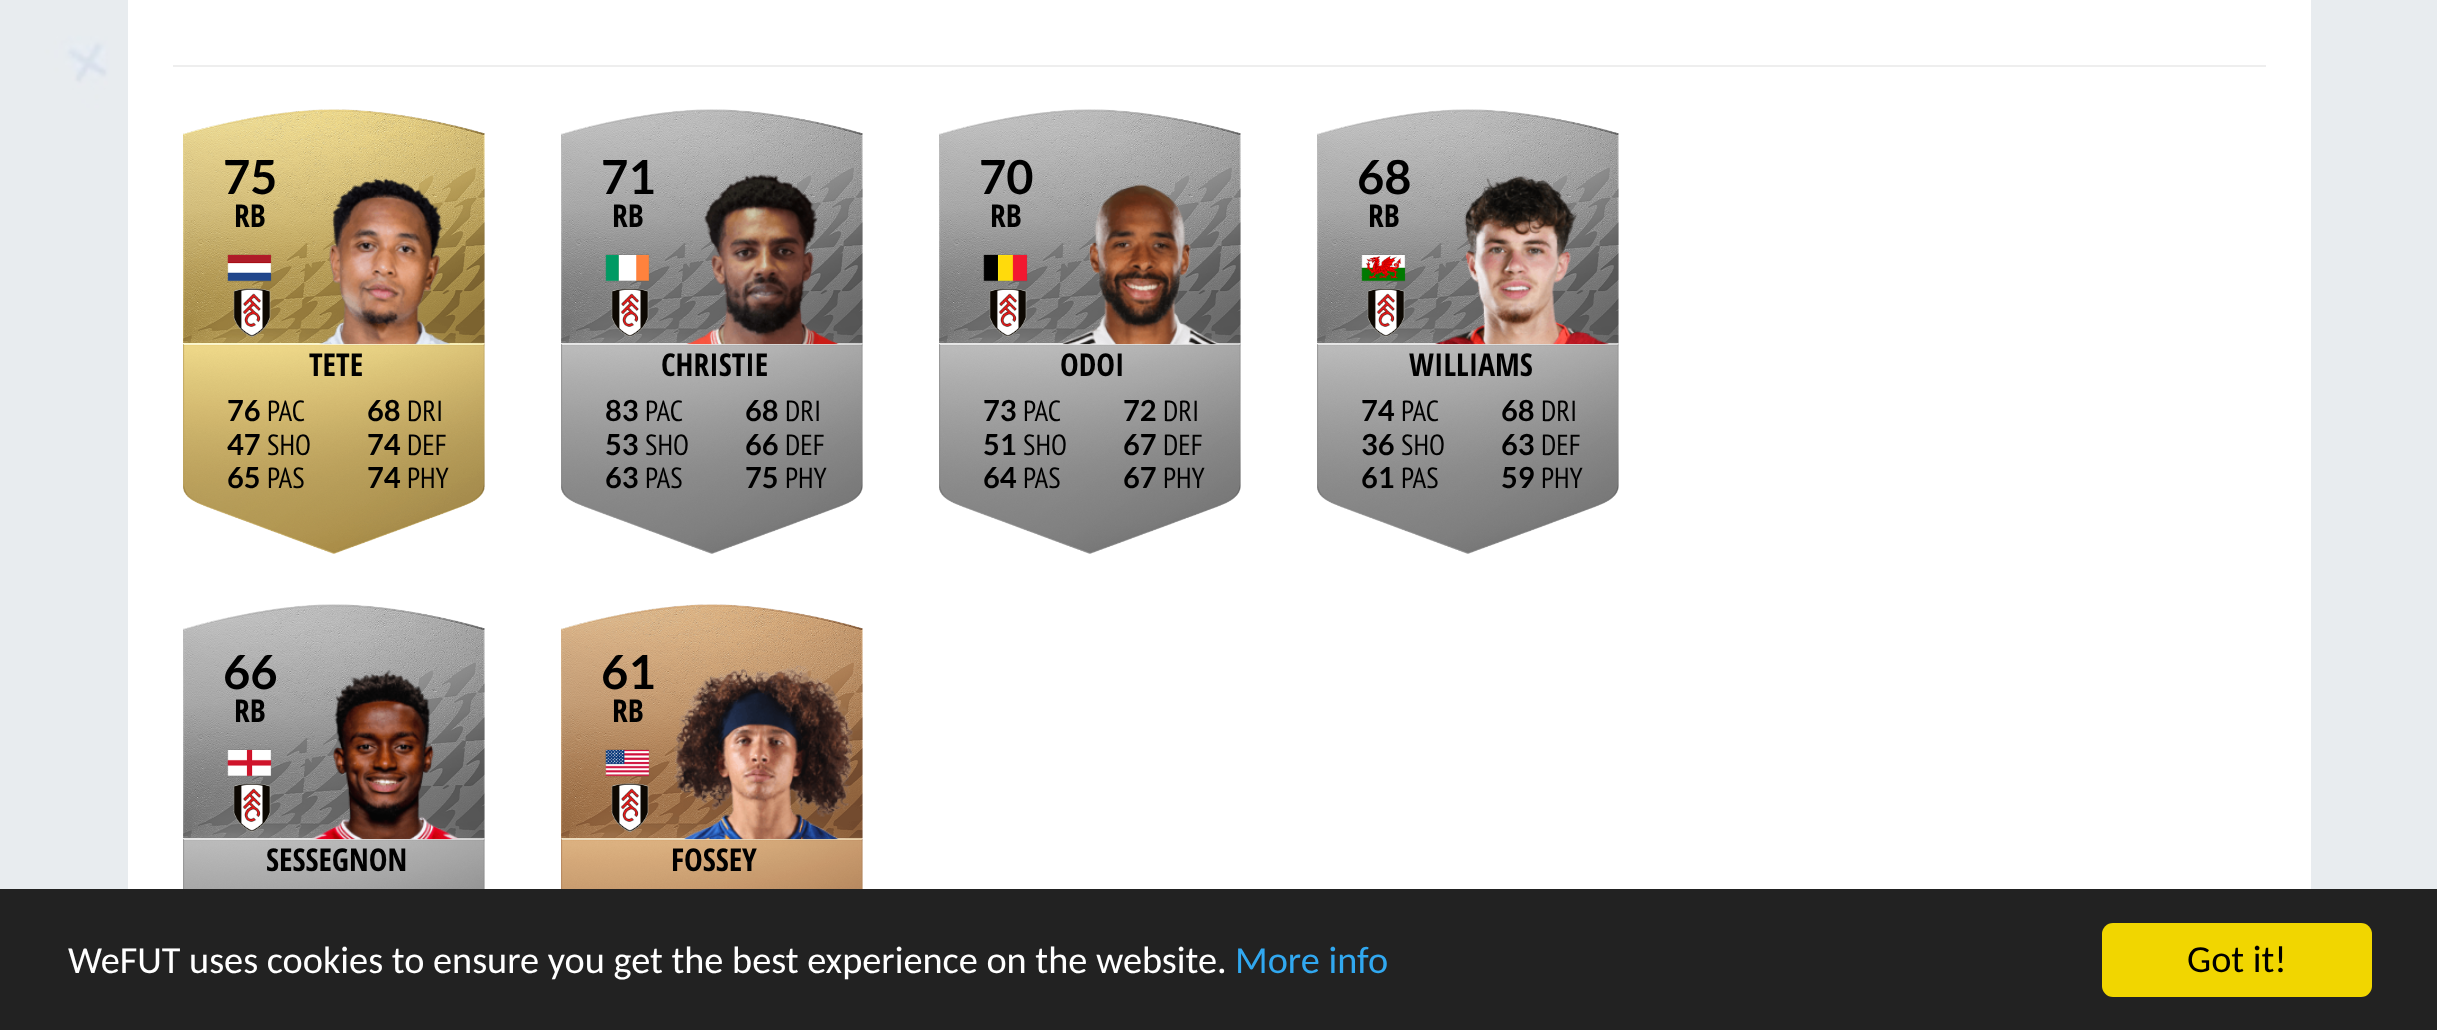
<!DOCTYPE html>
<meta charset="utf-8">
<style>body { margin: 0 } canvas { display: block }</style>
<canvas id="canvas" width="2437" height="1030"></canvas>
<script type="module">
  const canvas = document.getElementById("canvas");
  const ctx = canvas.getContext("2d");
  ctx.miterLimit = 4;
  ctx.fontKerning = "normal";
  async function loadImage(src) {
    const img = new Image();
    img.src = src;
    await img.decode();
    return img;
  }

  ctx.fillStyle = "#ffffff";
  ctx.fillRect(0, 0, 2437, 1030);
  ctx.drawImage(await loadImage("img1.png"), 0, 0, 2437, 889);
  ctx.fillRect(128, 0, 2183, 889);
  ctx.fillStyle = "#eeeeee";
  ctx.fillRect(173, 65, 2093, 2);
  ctx.drawImage(await loadImage("img2.png"), 183, 109, 302, 445);
  ctx.font = "bold 47px Lato";
  ctx.fillStyle = "#000000";
  ctx.fillText("75", 223, 194);
  ctx.drawImage(await loadImage("img3.png"), 319, 178, 131, 167);
  ctx.font = "bold 31.5px Open Sans Condensed";
  ctx.fillText("RB", 234, 227);
  ctx.drawImage(await loadImage("img4.png"), 227, 254, 45, 28);
  ctx.drawImage(await loadImage("img5.png"), 233, 288, 38, 50);
  ctx.fillText("TETE", 309, 376);
  ctx.font = "bold 29px Lato";
  ctx.fillText("76", 227, 421);
  ctx.font = "29px PT Sans Narrow";
  ctx.fillText("PAC", 267, 421);
  ctx.font = "bold 29px Lato";
  ctx.fillText("68", 367, 421);
  ctx.font = "29px PT Sans Narrow";
  ctx.fillText("DRI", 407, 421);
  ctx.font = "bold 29px Lato";
  ctx.fillText("47", 227, 455);
  ctx.font = "29px PT Sans Narrow";
  ctx.fillText("SHO", 267, 455);
  ctx.font = "bold 29px Lato";
  ctx.fillText("74", 367, 455);
  ctx.font = "29px PT Sans Narrow";
  ctx.fillText("DEF", 407, 455);
  ctx.font = "bold 29px Lato";
  ctx.fillText("65", 227, 488);
  ctx.font = "29px PT Sans Narrow";
  ctx.fillText("PAS", 267, 488);
  ctx.font = "bold 29px Lato";
  ctx.fillText("74", 367, 488);
  ctx.font = "29px PT Sans Narrow";
  ctx.fillText("PHY", 407, 488);
  ctx.drawImage(await loadImage("img6.png"), 561, 109, 302, 445);
  ctx.font = "bold 47px Lato";
  ctx.fillText("71", 601, 194);
  ctx.drawImage(await loadImage("img7.png"), 686, 174, 153, 171);
  ctx.font = "bold 31.5px Open Sans Condensed";
  ctx.fillText("RB", 612, 227);
  ctx.drawImage(await loadImage("img8.png"), 605, 254, 45, 28);
  ctx.drawImage(await loadImage("img9.png"), 611, 288, 38, 49);
  ctx.fillText("CHRISTIE", 661, 376);
  ctx.font = "bold 29px Lato";
  ctx.fillText("83", 605, 421);
  ctx.font = "29px PT Sans Narrow";
  ctx.fillText("PAC", 645, 421);
  ctx.font = "bold 29px Lato";
  ctx.fillText("68", 745, 421);
  ctx.font = "29px PT Sans Narrow";
  ctx.fillText("DRI", 785, 421);
  ctx.font = "bold 29px Lato";
  ctx.fillText("53", 605, 455);
  ctx.font = "29px PT Sans Narrow";
  ctx.fillText("SHO", 645, 455);
  ctx.font = "bold 29px Lato";
  ctx.fillText("66", 745, 455);
  ctx.font = "29px PT Sans Narrow";
  ctx.fillText("DEF", 785, 455);
  ctx.font = "bold 29px Lato";
  ctx.fillText("63", 605, 488);
  ctx.font = "29px PT Sans Narrow";
  ctx.fillText("PAS", 645, 488);
  ctx.font = "bold 29px Lato";
  ctx.fillText("75", 745, 488);
  ctx.font = "29px PT Sans Narrow";
  ctx.fillText("PHY", 785, 488);
  ctx.drawImage(await loadImage("img6.png"), 939, 109, 302, 445);
  ctx.font = "bold 47px Lato";
  ctx.fillText("70", 979, 194);
  ctx.font = "bold 31.5px Open Sans Condensed";
  ctx.fillText("RB", 990, 227);
  ctx.drawImage(await loadImage("img10.png"), 1062, 184, 157, 161);
  ctx.drawImage(await loadImage("img11.png"), 983, 254, 45, 28);
  ctx.drawImage(await loadImage("img9.png"), 989, 288, 38, 49);
  ctx.fillText("ODOI", 1060, 376);
  ctx.font = "bold 29px Lato";
  ctx.fillText("73", 983, 421);
  ctx.font = "29px PT Sans Narrow";
  ctx.fillText("PAC", 1023, 421);
  ctx.font = "bold 29px Lato";
  ctx.fillText("72", 1123, 421);
  ctx.font = "29px PT Sans Narrow";
  ctx.fillText("DRI", 1163, 421);
  ctx.font = "bold 29px Lato";
  ctx.fillText("51", 983, 455);
  ctx.font = "29px PT Sans Narrow";
  ctx.fillText("SHO", 1023, 455);
  ctx.font = "bold 29px Lato";
  ctx.fillText("67", 1123, 455);
  ctx.font = "29px PT Sans Narrow";
  ctx.fillText("DEF", 1163, 455);
  ctx.font = "bold 29px Lato";
  ctx.fillText("64", 983, 488);
  ctx.font = "29px PT Sans Narrow";
  ctx.fillText("PAS", 1023, 488);
  ctx.font = "bold 29px Lato";
  ctx.fillText("67", 1123, 488);
  ctx.font = "29px PT Sans Narrow";
  ctx.fillText("PHY", 1163, 488);
  ctx.drawImage(await loadImage("img6.png"), 1317, 109, 302, 445);
  ctx.font = "bold 47px Lato";
  ctx.fillText("68", 1357, 194);
  ctx.drawImage(await loadImage("img12.png"), 1435, 176, 174, 169);
  ctx.font = "bold 31.5px Open Sans Condensed";
  ctx.fillText("RB", 1368, 227);
  ctx.drawImage(await loadImage("img13.png"), 1361, 254, 45, 28);
  ctx.drawImage(await loadImage("img9.png"), 1367, 288, 38, 49);
  ctx.fillText("WILLIAMS", 1409, 376);
  ctx.font = "bold 29px Lato";
  ctx.fillText("74", 1361, 421);
  ctx.font = "29px PT Sans Narrow";
  ctx.fillText("PAC", 1401, 421);
  ctx.font = "bold 29px Lato";
  ctx.fillText("68", 1501, 421);
  ctx.font = "29px PT Sans Narrow";
  ctx.fillText("DRI", 1541, 421);
  ctx.font = "bold 29px Lato";
  ctx.fillText("36", 1361, 455);
  ctx.font = "29px PT Sans Narrow";
  ctx.fillText("SHO", 1401, 455);
  ctx.font = "bold 29px Lato";
  ctx.fillText("63", 1501, 455);
  ctx.font = "29px PT Sans Narrow";
  ctx.fillText("DEF", 1541, 455);
  ctx.font = "bold 29px Lato";
  ctx.fillText("61", 1361, 488);
  ctx.font = "29px PT Sans Narrow";
  ctx.fillText("PAS", 1401, 488);
  ctx.font = "bold 29px Lato";
  ctx.fillText("59", 1501, 488);
  ctx.font = "29px PT Sans Narrow";
  ctx.fillText("PHY", 1541, 488);
  ctx.drawImage(await loadImage("img14.png"), 183, 604, 302, 285);
  ctx.font = "bold 47px Lato";
  ctx.fillText("66", 223, 689);
  ctx.drawImage(await loadImage("img15.png"), 310, 670, 149, 170);
  ctx.font = "bold 31.5px Open Sans Condensed";
  ctx.fillText("RB", 234, 722);
  ctx.drawImage(await loadImage("img16.png"), 227, 749, 45, 28);
  ctx.drawImage(await loadImage("img9.png"), 233, 783, 38, 49);
  ctx.fillText("SESSEGNON", 266, 871);
  ctx.drawImage(await loadImage("img17.png"), 561, 604, 302, 285);
  ctx.font = "bold 47px Lato";
  ctx.fillText("61", 601, 689);
  ctx.drawImage(await loadImage("img18.png"), 673, 665, 180, 175);
  ctx.font = "bold 31.5px Open Sans Condensed";
  ctx.fillText("RB", 612, 722);
  ctx.drawImage(await loadImage("img19.png"), 605, 749, 45, 28);
  ctx.drawImage(await loadImage("img20.png"), 611, 783, 38, 49);
  ctx.fillText("FOSSEY", 671, 871);
  ctx.fillStyle = "#222222";
  ctx.fillRect(0, 889, 2437, 141);
  ctx.font = "38.25px Carlito";
  ctx.fillStyle = "#ffffff";
  ctx.fillText("WeFUT uses cookies to ensure you get the best experience on the website.", 68, 973);
  ctx.fillStyle = "#31a8f0";
  ctx.fillText("More info", 1235, 973);
  ctx.fillStyle = "#f1d600";
  ctx.beginPath();
  ctx.roundRect(2102, 923, 270, 74, 11);
  ctx.fill();
  ctx.fillStyle = "#000000";
  ctx.fillText("Got it!", 2187, 972);
</script>
